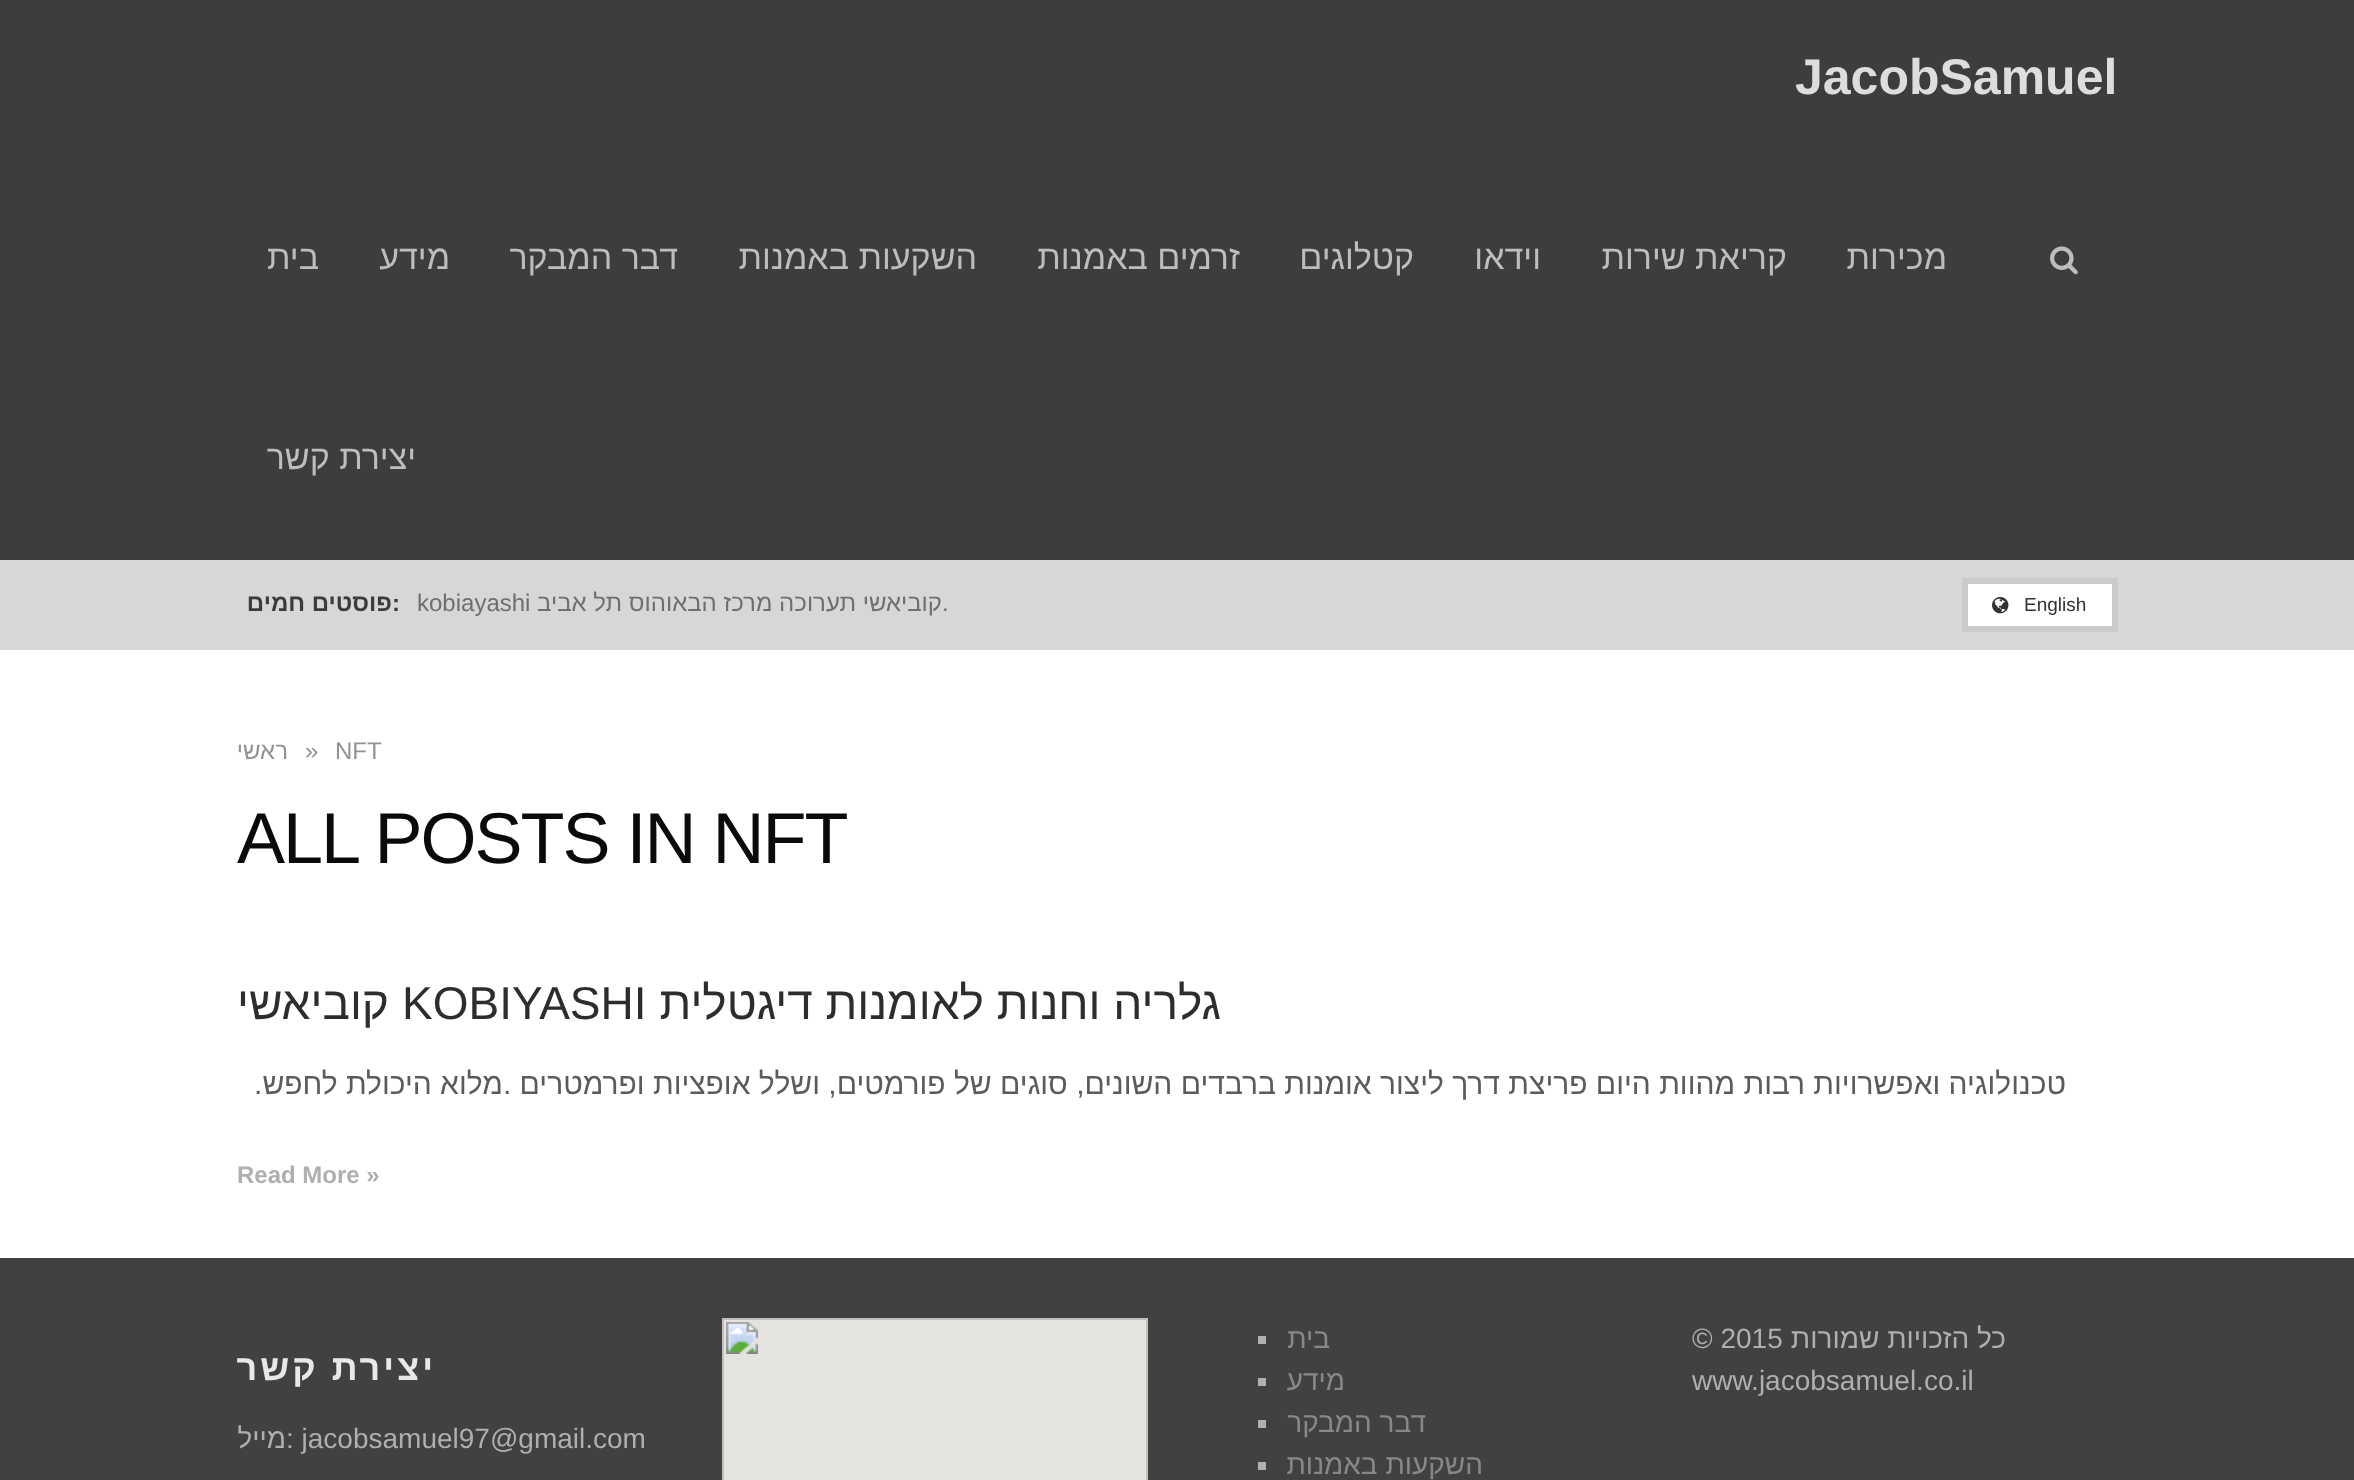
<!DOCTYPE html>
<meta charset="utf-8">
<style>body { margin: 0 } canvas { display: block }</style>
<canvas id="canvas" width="2354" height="1480"></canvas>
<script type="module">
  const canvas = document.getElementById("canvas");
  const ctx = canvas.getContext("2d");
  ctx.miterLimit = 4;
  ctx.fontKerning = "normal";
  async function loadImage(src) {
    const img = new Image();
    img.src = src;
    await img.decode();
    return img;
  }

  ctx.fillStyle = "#3d3d3d";
  ctx.fillRect(0, 0, 2354, 1480);
  ctx.font = "bold 50px Liberation Sans";
  ctx.fillStyle = "#dddddd";
  ctx.fillText("JacobSamuel", 1795, 94);
  ctx.drawImage(await loadImage("img1.png"), 2050, 246, 28, 29);
  ctx.direction = "rtl";
  ctx.font = "34px Liberation Sans";
  ctx.fillStyle = "#bdbdbd";
  ctx.fillText("מכירות", 1947, 269);
  ctx.fillText("קריאת שירות", 1787, 269);
  ctx.fillText("וידאו", 1541, 269);
  ctx.fillText("קטלוגים", 1414, 269);
  ctx.fillText("זרמים באמנות", 1240, 269);
  ctx.fillText("השקעות באמנות", 977, 269);
  ctx.fillText("דבר המבקר", 678, 269);
  ctx.fillText("מידע", 450, 269);
  ctx.fillText("בית", 319, 269);
  ctx.fillText("יצירת קשר", 416, 469);
  ctx.fillStyle = "#d7d7d7";
  ctx.fillRect(0, 560, 2354, 90);
  ctx.fillStyle = "#ffffff";
  ctx.beginPath();
  ctx.rect(1965, 581, 150, 48);
  ctx.fill();
  ctx.strokeStyle = "#cccccc";
  ctx.lineWidth = 6;
  ctx.stroke();
  ctx.direction = "ltr";
  ctx.font = "19px Liberation Sans";
  ctx.fillStyle = "#333333";
  ctx.fillText("English", 2024, 611);
  ctx.drawImage(await loadImage("img2.png"), 1992, 596, 17, 18);
  ctx.font = "24px Liberation Sans";
  ctx.fillStyle = "#6f6f6f";
  ctx.fillText(".", 942, 611);
  ctx.direction = "rtl";
  ctx.fillText("קוביאשי תערוכה מרכז הבאוהוס תל אביב", 942, 611);
  ctx.direction = "ltr";
  ctx.fillText("kobiayashi", 417, 611);
  ctx.font = "bold 24px Liberation Sans";
  ctx.fillStyle = "#3b3b3b";
  ctx.fillText(":", 392, 611);
  ctx.direction = "rtl";
  ctx.fillText("פוסטים חמים", 392, 611);
  ctx.fillStyle = "#ffffff";
  ctx.fillRect(0, 650, 2354, 608);
  ctx.direction = "ltr";
  ctx.font = "24px Liberation Sans";
  ctx.fillStyle = "#929292";
  ctx.fillText("NFT", 335, 759);
  ctx.fillText("»", 305, 759);
  ctx.direction = "rtl";
  ctx.fillText("ראשי", 288, 759);
  ctx.letterSpacing = "-2px";
  ctx.direction = "ltr";
  ctx.font = "72px Liberation Sans";
  ctx.fillStyle = "#0a0a0a";
  ctx.fillText("ALL POSTS IN NFT", 237, 863);
  ctx.letterSpacing = "0px";
  ctx.direction = "rtl";
  ctx.font = "46px Liberation Sans";
  ctx.fillStyle = "#2d2d2d";
  ctx.fillText("גלריה וחנות לאומנות דיגטלית", 1221, 1019);
  ctx.direction = "ltr";
  ctx.fillText("KOBIYASHI", 402, 1019);
  ctx.direction = "rtl";
  ctx.fillText("קוביאשי", 389, 1019);
  ctx.font = "30px Liberation Sans";
  ctx.fillStyle = "#5b5b5b";
  ctx.fillText("טכנולוגיה ואפשרויות רבות מהוות היום פריצת דרך ליצור אומנות ברבדים השונים, סוגים של פורמטים, ושלל אופציות ופרמטרים .מלוא היכולת לחפש", 2066, 1094);
  ctx.direction = "ltr";
  ctx.fillText(".", 254, 1094);
  ctx.font = "bold 24px Liberation Sans";
  ctx.fillStyle = "#afafaf";
  ctx.fillText("Read More »", 237, 1183);
  ctx.fillStyle = "#414141";
  ctx.fillRect(0, 1258, 2354, 222);
  ctx.direction = "rtl";
  ctx.font = "28px Liberation Sans";
  ctx.fillStyle = "#afafaf";
  ctx.fillText("כל הזכויות שמורות", 2006, 1348);
  ctx.direction = "ltr";
  ctx.fillText("© 2015", 1692, 1348);
  ctx.fillText("www.jacobsamuel.co.il", 1692, 1390);
  ctx.direction = "rtl";
  ctx.fillStyle = "#888888";
  ctx.fillText("בית", 1330, 1348);
  ctx.fillStyle = "#b0b0b0";
  ctx.fillRect(1258, 1336, 8, 8);
  ctx.fillStyle = "#888888";
  ctx.fillText("מידע", 1345, 1390);
  ctx.fillStyle = "#b0b0b0";
  ctx.fillRect(1258, 1378, 8, 8);
  ctx.fillStyle = "#888888";
  ctx.fillText("דבר המבקר", 1426, 1432);
  ctx.fillStyle = "#b0b0b0";
  ctx.fillRect(1258, 1420, 8, 8);
  ctx.fillStyle = "#888888";
  ctx.fillText("השקעות באמנות", 1483, 1474);
  ctx.fillStyle = "#b0b0b0";
  ctx.fillRect(1258, 1462, 8, 8);
  ctx.drawImage(await loadImage("img3.png"), 722, 1318, 426, 162);
  ctx.letterSpacing = "3px";
  ctx.font = "bold 36px Liberation Sans";
  ctx.fillStyle = "#e8e8e8";
  ctx.fillText("יצירת קשר", 436, 1380);
  ctx.letterSpacing = "0px";
  ctx.direction = "ltr";
  ctx.font = "28px Liberation Sans";
  ctx.fillStyle = "#afafaf";
  ctx.fillText(": jacobsamuel97@gmail.com", 286, 1448);
  ctx.direction = "rtl";
  ctx.fillText("מייל", 286, 1448);
</script>
